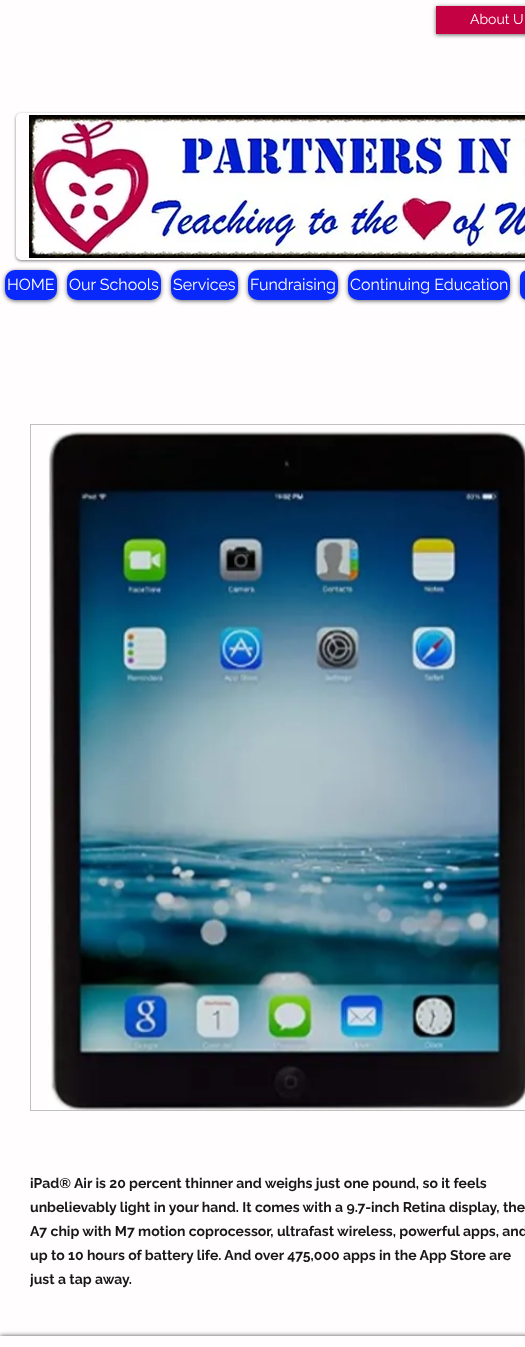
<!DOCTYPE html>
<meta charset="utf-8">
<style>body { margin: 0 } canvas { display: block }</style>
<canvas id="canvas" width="525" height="1347"></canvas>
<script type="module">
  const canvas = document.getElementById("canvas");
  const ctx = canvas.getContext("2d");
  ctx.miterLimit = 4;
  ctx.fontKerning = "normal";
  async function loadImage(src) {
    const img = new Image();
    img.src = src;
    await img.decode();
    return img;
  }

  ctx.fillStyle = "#fffdfd";
  ctx.fillRect(0, 0, 525, 1347);
  ctx.fillStyle = "rgba(0, 0, 0, 0.6)";
  ctx.filter = "blur(2px)";
  ctx.beginPath();
  ctx.rect(436, 7, 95, 28);
  ctx.fill();
  ctx.filter = "none";
  ctx.fillStyle = "#c40243";
  ctx.fillRect(436, 6, 89, 28);
  ctx.font = "14px Raleway";
  ctx.fillStyle = "#ffffff";
  ctx.fillText("About U", 470, 24);
  ctx.fillStyle = "rgba(0, 0, 0, 0.5)";
  ctx.filter = "blur(1.5px)";
  ctx.beginPath();
  ctx.roundRect(16, 114, 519, 147, 5);
  ctx.fill();
  ctx.filter = "none";
  ctx.fillStyle = "#fffdfd";
  ctx.beginPath();
  ctx.roundRect(17, 114, 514, 145, 4);
  ctx.fill();
  ctx.strokeStyle = "#fffdfd";
  ctx.lineWidth = 2;
  ctx.stroke();
  ctx.drawImage(await loadImage("img1.png"), 29, 115, 496, 143);
  ctx.fillStyle = "rgba(0, 0, 0, 0.6)";
  ctx.filter = "blur(2px)";
  ctx.beginPath();
  ctx.roundRect(5, 271, 52, 30, 10);
  ctx.fill();
  ctx.filter = "none";
  ctx.fillStyle = "#0929fc";
  ctx.beginPath();
  ctx.roundRect(5, 270, 52, 30, 10);
  ctx.fill();
  ctx.font = "16px Raleway";
  ctx.fillStyle = "#ffffff";
  ctx.fillText("HOME", 7, 290);
  ctx.fillStyle = "rgba(0, 0, 0, 0.6)";
  ctx.filter = "blur(2px)";
  ctx.beginPath();
  ctx.roundRect(67, 271, 94, 30, 10);
  ctx.fill();
  ctx.filter = "none";
  ctx.fillStyle = "#0929fc";
  ctx.beginPath();
  ctx.roundRect(67, 270, 94, 30, 10);
  ctx.fill();
  ctx.fillStyle = "#ffffff";
  ctx.fillText("Our Schools", 69, 290);
  ctx.fillStyle = "rgba(0, 0, 0, 0.6)";
  ctx.filter = "blur(2px)";
  ctx.beginPath();
  ctx.roundRect(171, 271, 67, 30, 10);
  ctx.fill();
  ctx.filter = "none";
  ctx.fillStyle = "#0929fc";
  ctx.beginPath();
  ctx.roundRect(171, 270, 67, 30, 10);
  ctx.fill();
  ctx.fillStyle = "#ffffff";
  ctx.fillText("Services", 173, 290);
  ctx.fillStyle = "rgba(0, 0, 0, 0.6)";
  ctx.filter = "blur(2px)";
  ctx.beginPath();
  ctx.roundRect(248, 271, 90, 30, 10);
  ctx.fill();
  ctx.filter = "none";
  ctx.fillStyle = "#0929fc";
  ctx.beginPath();
  ctx.roundRect(248, 270, 90, 30, 10);
  ctx.fill();
  ctx.fillStyle = "#ffffff";
  ctx.fillText("Fundraising", 250, 290);
  ctx.fillStyle = "rgba(0, 0, 0, 0.6)";
  ctx.filter = "blur(2px)";
  ctx.beginPath();
  ctx.roundRect(348, 271, 162, 30, 10);
  ctx.fill();
  ctx.filter = "none";
  ctx.fillStyle = "#0929fc";
  ctx.beginPath();
  ctx.roundRect(348, 270, 162, 30, 10);
  ctx.fill();
  ctx.fillStyle = "#ffffff";
  ctx.fillText("Continuing Education", 350, 290);
  ctx.fillStyle = "rgba(0, 0, 0, 0.6)";
  ctx.filter = "blur(2px)";
  ctx.beginPath();
  ctx.roundRect(520, 271, 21, 30, 10);
  ctx.fill();
  ctx.filter = "none";
  ctx.fillStyle = "#0929fc";
  ctx.beginPath();
  ctx.roundRect(520, 270, 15, 30, 10);
  ctx.fill();
  ctx.strokeStyle = "#c0c0c0";
  ctx.lineWidth = 1;
  ctx.strokeRect(30.5, 424.5, 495, 686);
  ctx.drawImage(await loadImage("img2.png"), 48, 431, 477, 679);
  ctx.font = "bold 14px Raleway";
  ctx.fillStyle = "#191818";
  ctx.fillText("iPad® Air is 20 percent thinner and weighs just one pound, so it feels", 30, 1188);
  ctx.fillText("unbelievably light in your hand. It comes with a 9.7-inch Retina display, the", 30, 1212);
  ctx.fillText("A7 chip with M7 motion coprocessor, ultrafast wireless, powerful apps, and", 30, 1236);
  ctx.fillText("up to 10 hours of battery life. And over 475,000 apps in the App Store are", 30, 1260);
  ctx.save();
  ctx.beginPath();
  ctx.rect(30, 1171, 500, 120);
  ctx.clip();
  ctx.fillText("just a tap away.", 30, 1284);
  ctx.restore();
  ctx.fillStyle = "rgba(0, 0, 0, 0.7)";
  ctx.filter = "blur(2.5px)";
  ctx.beginPath();
  ctx.rect(0, 1336, 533, 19);
  ctx.fill();
  ctx.filter = "none";
  ctx.fillStyle = "#fffdfd";
  ctx.fillRect(0, 1336, 525, 11);
</script>
